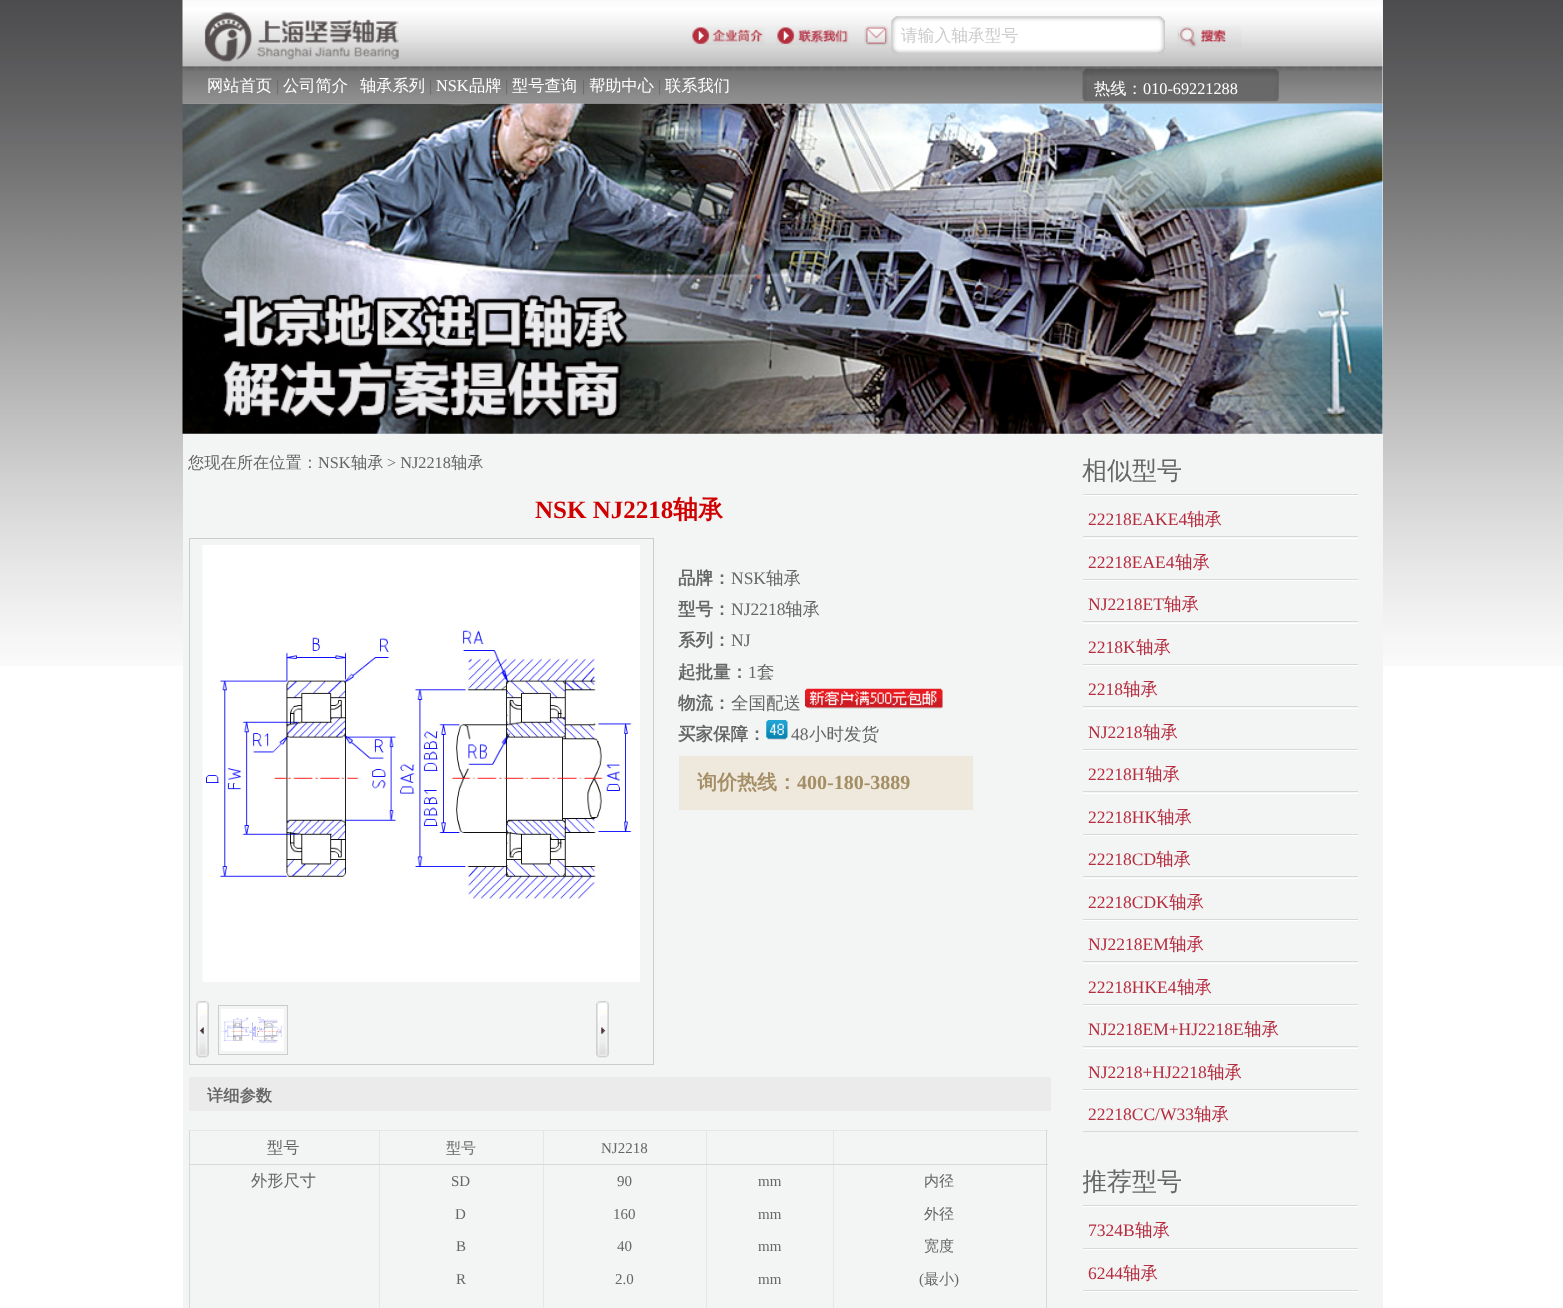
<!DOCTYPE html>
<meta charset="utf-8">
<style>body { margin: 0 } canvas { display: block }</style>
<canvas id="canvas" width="1563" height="1308"></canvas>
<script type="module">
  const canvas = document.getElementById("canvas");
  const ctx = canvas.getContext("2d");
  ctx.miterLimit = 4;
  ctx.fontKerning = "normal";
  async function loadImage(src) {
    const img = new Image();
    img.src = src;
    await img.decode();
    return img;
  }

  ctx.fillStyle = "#ffffff";
  ctx.fillRect(0, 0, 1563, 1308);
  ctx.drawImage(await loadImage("img1.png"), 0, 0, 1563, 666);
  ctx.fillStyle = "#f3f4f4";
  ctx.fillRect(183, 0, 1200, 1308);
  ctx.drawImage(await loadImage("img2.png"), 182, 0, 1201, 67);
  ctx.drawImage(await loadImage("img3.png"), 204, 12, 195, 50);
  ctx.drawImage(await loadImage("img4.png"), 692, 27, 72, 18);
  ctx.drawImage(await loadImage("img5.png"), 776, 27, 73, 18);
  ctx.drawImage(await loadImage("img6.png"), 864, 25, 25, 21);
  ctx.drawImage(await loadImage("img7.png"), 891, 16, 274, 38);
  ctx.font = "500 16.75px WenQuanYi Zen Hei";
  ctx.fillStyle = "#cccccc";
  ctx.fillText("请输入轴承型号", 901, 41);
  ctx.drawImage(await loadImage("img8.png"), 1177, 26, 64, 22);
  ctx.drawImage(await loadImage("img9.png"), 1178, 27, 64, 20);
  ctx.drawImage(await loadImage("img10.png"), 182, 66, 1201, 38);
  ctx.font = "500 16.25px WenQuanYi Zen Hei";
  ctx.fillStyle = "#ffffff";
  ctx.fillText("网站首页", 207, 91);
  ctx.font = "16.25px Liberation Serif";
  ctx.fillStyle = "#666666";
  ctx.fillText("|", 276, 91);
  ctx.font = "500 16.25px WenQuanYi Zen Hei";
  ctx.fillStyle = "#ffffff";
  ctx.fillText("公司简介", 283, 91);
  ctx.fillText("轴承系列", 360, 91);
  ctx.font = "16.25px Liberation Serif";
  ctx.fillStyle = "#666666";
  ctx.fillText("|", 429, 91);
  ctx.fillStyle = "#ffffff";
  ctx.fillText("NSK", 436, 91);
  ctx.font = "500 16.25px WenQuanYi Zen Hei";
  ctx.fillText("品牌", 469, 91);
  ctx.font = "16.25px Liberation Serif";
  ctx.fillStyle = "#666666";
  ctx.fillText("|", 505, 91);
  ctx.font = "500 16.25px WenQuanYi Zen Hei";
  ctx.fillStyle = "#ffffff";
  ctx.fillText("型号查询", 512, 91);
  ctx.font = "16.25px Liberation Serif";
  ctx.fillStyle = "#666666";
  ctx.fillText("|", 582, 91);
  ctx.font = "500 16.25px WenQuanYi Zen Hei";
  ctx.fillStyle = "#ffffff";
  ctx.fillText("帮助中心", 589, 91);
  ctx.font = "16.25px Liberation Serif";
  ctx.fillStyle = "#666666";
  ctx.fillText("|", 658, 91);
  ctx.font = "500 16.25px WenQuanYi Zen Hei";
  ctx.fillStyle = "#ffffff";
  ctx.fillText("联系我们", 665, 91);
  ctx.drawImage(await loadImage("img11.png"), 1082, 68, 197, 34);
  ctx.fillText("热线：", 1094, 94);
  ctx.font = "16.25px Liberation Serif";
  ctx.fillText("010-69221288", 1143, 94);
  ctx.drawImage(await loadImage("img12.png"), 182, 103, 1201, 331);
  ctx.font = "500 16.25px WenQuanYi Zen Hei";
  ctx.fillStyle = "#666666";
  ctx.fillText("您现在所在位置：", 188, 468);
  ctx.font = "16.25px Liberation Serif";
  ctx.fillText("NSK", 318, 468);
  ctx.font = "500 16.25px WenQuanYi Zen Hei";
  ctx.fillText("轴承", 351, 468);
  ctx.font = "16.25px Liberation Serif";
  ctx.fillText("> NJ2218", 387, 468);
  ctx.font = "500 16.25px WenQuanYi Zen Hei";
  ctx.fillText("轴承", 451, 468);
  ctx.font = "bold 25px Liberation Serif";
  ctx.fillStyle = "#d00000";
  ctx.fillText("NSK NJ2218", 535, 518);
  ctx.font = "bold 25px WenQuanYi Zen Hei";
  ctx.fillText("轴承", 673, 518);
  ctx.strokeStyle = "#cccccc";
  ctx.strokeRect(189.5, 538.5, 464, 526);
  ctx.drawImage(await loadImage("img13.png"), 202, 545, 438, 437);
  ctx.drawImage(await loadImage("img14.png"), 196, 1001, 13, 57);
  ctx.strokeRect(218.5, 1005.5, 69, 49);
  ctx.drawImage(await loadImage("img15.png"), 221, 1009, 63, 42);
  ctx.drawImage(await loadImage("img16.png"), 596, 1001, 13, 57);
  ctx.font = "bold 17.5px WenQuanYi Zen Hei";
  ctx.fillStyle = "#666666";
  ctx.fillText("品牌：", 678, 584);
  ctx.font = "17.5px Liberation Serif";
  ctx.fillText("NSK", 731, 584);
  ctx.font = "500 17.5px WenQuanYi Zen Hei";
  ctx.fillText("轴承", 766, 584);
  ctx.font = "bold 17.5px WenQuanYi Zen Hei";
  ctx.fillText("型号：", 678, 615);
  ctx.font = "17.5px Liberation Serif";
  ctx.fillText("NJ2218", 731, 615);
  ctx.font = "500 17.5px WenQuanYi Zen Hei";
  ctx.fillText("轴承", 785, 615);
  ctx.font = "bold 17.5px WenQuanYi Zen Hei";
  ctx.fillText("系列：", 678, 646);
  ctx.font = "17.5px Liberation Serif";
  ctx.fillText("NJ", 731, 646);
  ctx.font = "bold 17.5px WenQuanYi Zen Hei";
  ctx.fillText("起批量：", 678, 678);
  ctx.font = "17.5px Liberation Serif";
  ctx.fillText("1", 748, 678);
  ctx.font = "500 17.5px WenQuanYi Zen Hei";
  ctx.fillText("套", 757, 678);
  ctx.font = "bold 17.5px WenQuanYi Zen Hei";
  ctx.fillText("物流：", 678, 709);
  ctx.font = "500 17.5px WenQuanYi Zen Hei";
  ctx.fillText("全国配送", 731, 709);
  ctx.drawImage(await loadImage("img17.png"), 805, 688, 138, 21);
  ctx.font = "bold 17.5px WenQuanYi Zen Hei";
  ctx.fillText("买家保障：", 678, 740);
  ctx.drawImage(await loadImage("img18.png"), 766, 720, 22, 20);
  ctx.font = "17.5px Liberation Serif";
  ctx.fillText("48", 791, 740);
  ctx.font = "500 17.5px WenQuanYi Zen Hei";
  ctx.fillText("小时发货", 809, 740);
  ctx.fillStyle = "#efe9dd";
  ctx.fillRect(679, 756, 294, 54);
  ctx.font = "bold 20px WenQuanYi Zen Hei";
  ctx.fillStyle = "#a48e66";
  ctx.fillText("询价热线：", 697, 789);
  ctx.font = "bold 20px Liberation Serif";
  ctx.fillText("400-180-3889", 797, 789);
  ctx.fillStyle = "#ebebeb";
  ctx.fillRect(189, 1077, 862, 34);
  ctx.font = "bold 16.25px WenQuanYi Zen Hei";
  ctx.fillStyle = "#666666";
  ctx.fillText("详细参数", 207, 1101);
  ctx.fillStyle = "#e6e6e6";
  ctx.fillRect(189, 1130, 859, 1);
  ctx.fillStyle = "#d8d8d8";
  ctx.fillRect(1046, 1130, 1, 34);
  ctx.fillRect(189, 1130, 1, 34);
  ctx.font = "500 16.25px WenQuanYi Zen Hei";
  ctx.fillStyle = "#666666";
  ctx.fillText("型号", 267, 1153);
  ctx.fillStyle = "#e6e6e6";
  ctx.fillRect(379, 1131, 1, 33);
  ctx.font = "500 15px WenQuanYi Zen Hei";
  ctx.fillStyle = "#666666";
  ctx.fillText("型号", 446, 1153);
  ctx.fillStyle = "#e6e6e6";
  ctx.fillRect(543, 1131, 1, 33);
  ctx.font = "15px Liberation Serif";
  ctx.fillStyle = "#666666";
  ctx.fillText("NJ2218", 601, 1153);
  ctx.fillStyle = "#e6e6e6";
  ctx.fillRect(706, 1131, 1, 33);
  ctx.fillRect(833, 1131, 1, 33);
  ctx.fillStyle = "#d8d8d8";
  ctx.fillRect(189, 1164, 859, 1);
  ctx.fillRect(1046, 1164, 1, 144);
  ctx.fillRect(189, 1164, 1, 144);
  ctx.font = "500 16.25px WenQuanYi Zen Hei";
  ctx.fillStyle = "#666666";
  ctx.fillText("外形尺寸", 251, 1186);
  ctx.fillStyle = "#e6e6e6";
  ctx.fillRect(379, 1165, 1, 143);
  ctx.font = "15px Liberation Serif";
  ctx.fillStyle = "#666666";
  ctx.fillText("SD", 451, 1186);
  ctx.fillStyle = "#e6e6e6";
  ctx.fillRect(543, 1165, 1, 143);
  ctx.fillStyle = "#666666";
  ctx.fillText("90", 617, 1186);
  ctx.fillStyle = "#e6e6e6";
  ctx.fillRect(706, 1165, 1, 143);
  ctx.fillStyle = "#666666";
  ctx.fillText("mm", 758, 1186);
  ctx.fillStyle = "#e6e6e6";
  ctx.fillRect(833, 1165, 1, 143);
  ctx.font = "500 15px WenQuanYi Zen Hei";
  ctx.fillStyle = "#666666";
  ctx.fillText("内径", 924, 1186);
  ctx.font = "15px Liberation Serif";
  ctx.fillText("D", 455, 1219);
  ctx.fillText("160", 613, 1219);
  ctx.fillText("mm", 758, 1219);
  ctx.font = "500 15px WenQuanYi Zen Hei";
  ctx.fillText("外径", 924, 1219);
  ctx.font = "15px Liberation Serif";
  ctx.fillText("B", 456, 1251);
  ctx.fillText("40", 617, 1251);
  ctx.fillText("mm", 758, 1251);
  ctx.font = "500 15px WenQuanYi Zen Hei";
  ctx.fillText("宽度", 924, 1251);
  ctx.font = "15px Liberation Serif";
  ctx.fillText("R", 456, 1284);
  ctx.fillText("2.0", 615, 1284);
  ctx.fillText("mm", 758, 1284);
  ctx.fillText("(", 919, 1284);
  ctx.font = "500 15px WenQuanYi Zen Hei";
  ctx.fillText("最小", 924, 1284);
  ctx.font = "15px Liberation Serif";
  ctx.fillText(")", 954, 1284);
  ctx.fillStyle = "#d8d8d8";
  ctx.fillRect(1083, 494, 275, 1);
  ctx.font = "500 25px WenQuanYi Zen Hei";
  ctx.fillStyle = "#666666";
  ctx.fillText("相似型号", 1082, 479);
  ctx.fillStyle = "#ffffff";
  ctx.fillRect(1083, 495, 275, 1);
  ctx.fillStyle = "#d8d8d8";
  ctx.fillRect(1083, 536, 275, 1);
  ctx.font = "17.5px Liberation Serif";
  ctx.fillStyle = "#b62d3f";
  ctx.fillText("22218EAKE4", 1088, 525);
  ctx.font = "500 17.5px WenQuanYi Zen Hei";
  ctx.fillText("轴承", 1187, 525);
  ctx.fillStyle = "#ffffff";
  ctx.fillRect(1083, 538, 275, 1);
  ctx.fillStyle = "#d8d8d8";
  ctx.fillRect(1083, 579, 275, 1);
  ctx.font = "17.5px Liberation Serif";
  ctx.fillStyle = "#b62d3f";
  ctx.fillText("22218EAE4", 1088, 568);
  ctx.font = "500 17.5px WenQuanYi Zen Hei";
  ctx.fillText("轴承", 1175, 568);
  ctx.fillStyle = "#ffffff";
  ctx.fillRect(1083, 580, 275, 1);
  ctx.fillStyle = "#d8d8d8";
  ctx.fillRect(1083, 621, 275, 1);
  ctx.font = "17.5px Liberation Serif";
  ctx.fillStyle = "#b62d3f";
  ctx.fillText("NJ2218ET", 1088, 610);
  ctx.font = "500 17.5px WenQuanYi Zen Hei";
  ctx.fillText("轴承", 1164, 610);
  ctx.fillStyle = "#ffffff";
  ctx.fillRect(1083, 623, 275, 1);
  ctx.fillStyle = "#d8d8d8";
  ctx.fillRect(1083, 664, 275, 1);
  ctx.font = "17.5px Liberation Serif";
  ctx.fillStyle = "#b62d3f";
  ctx.fillText("2218K", 1088, 653);
  ctx.font = "500 17.5px WenQuanYi Zen Hei";
  ctx.fillText("轴承", 1136, 653);
  ctx.fillStyle = "#ffffff";
  ctx.fillRect(1083, 665, 275, 1);
  ctx.fillStyle = "#d8d8d8";
  ctx.fillRect(1083, 706, 275, 1);
  ctx.font = "17.5px Liberation Serif";
  ctx.fillStyle = "#b62d3f";
  ctx.fillText("2218", 1088, 695);
  ctx.font = "500 17.5px WenQuanYi Zen Hei";
  ctx.fillText("轴承", 1123, 695);
  ctx.fillStyle = "#ffffff";
  ctx.fillRect(1083, 708, 275, 1);
  ctx.fillStyle = "#d8d8d8";
  ctx.fillRect(1083, 749, 275, 1);
  ctx.font = "17.5px Liberation Serif";
  ctx.fillStyle = "#b62d3f";
  ctx.fillText("NJ2218", 1088, 738);
  ctx.font = "500 17.5px WenQuanYi Zen Hei";
  ctx.fillText("轴承", 1143, 738);
  ctx.fillStyle = "#ffffff";
  ctx.fillRect(1083, 750, 275, 1);
  ctx.fillStyle = "#d8d8d8";
  ctx.fillRect(1083, 791, 275, 1);
  ctx.font = "17.5px Liberation Serif";
  ctx.fillStyle = "#b62d3f";
  ctx.fillText("22218H", 1088, 780);
  ctx.font = "500 17.5px WenQuanYi Zen Hei";
  ctx.fillText("轴承", 1145, 780);
  ctx.fillStyle = "#ffffff";
  ctx.fillRect(1083, 793, 275, 1);
  ctx.fillStyle = "#d8d8d8";
  ctx.fillRect(1083, 834, 275, 1);
  ctx.font = "17.5px Liberation Serif";
  ctx.fillStyle = "#b62d3f";
  ctx.fillText("22218HK", 1088, 823);
  ctx.font = "500 17.5px WenQuanYi Zen Hei";
  ctx.fillText("轴承", 1157, 823);
  ctx.fillStyle = "#ffffff";
  ctx.fillRect(1083, 835, 275, 1);
  ctx.fillStyle = "#d8d8d8";
  ctx.fillRect(1083, 876, 275, 1);
  ctx.font = "17.5px Liberation Serif";
  ctx.fillStyle = "#b62d3f";
  ctx.fillText("22218CD", 1088, 865);
  ctx.font = "500 17.5px WenQuanYi Zen Hei";
  ctx.fillText("轴承", 1156, 865);
  ctx.fillStyle = "#ffffff";
  ctx.fillRect(1083, 878, 275, 1);
  ctx.fillStyle = "#d8d8d8";
  ctx.fillRect(1083, 919, 275, 1);
  ctx.font = "17.5px Liberation Serif";
  ctx.fillStyle = "#b62d3f";
  ctx.fillText("22218CDK", 1088, 908);
  ctx.font = "500 17.5px WenQuanYi Zen Hei";
  ctx.fillText("轴承", 1169, 908);
  ctx.fillStyle = "#ffffff";
  ctx.fillRect(1083, 920, 275, 1);
  ctx.fillStyle = "#d8d8d8";
  ctx.fillRect(1083, 961, 275, 1);
  ctx.font = "17.5px Liberation Serif";
  ctx.fillStyle = "#b62d3f";
  ctx.fillText("NJ2218EM", 1088, 950);
  ctx.font = "500 17.5px WenQuanYi Zen Hei";
  ctx.fillText("轴承", 1169, 950);
  ctx.fillStyle = "#ffffff";
  ctx.fillRect(1083, 963, 275, 1);
  ctx.fillStyle = "#d8d8d8";
  ctx.fillRect(1083, 1004, 275, 1);
  ctx.font = "17.5px Liberation Serif";
  ctx.fillStyle = "#b62d3f";
  ctx.fillText("22218HKE4", 1088, 993);
  ctx.font = "500 17.5px WenQuanYi Zen Hei";
  ctx.fillText("轴承", 1177, 993);
  ctx.fillStyle = "#ffffff";
  ctx.fillRect(1083, 1005, 275, 1);
  ctx.fillStyle = "#d8d8d8";
  ctx.fillRect(1083, 1046, 275, 1);
  ctx.font = "17.5px Liberation Serif";
  ctx.fillStyle = "#b62d3f";
  ctx.fillText("NJ2218EM+HJ2218E", 1088, 1035);
  ctx.font = "500 17.5px WenQuanYi Zen Hei";
  ctx.fillText("轴承", 1244, 1035);
  ctx.fillStyle = "#ffffff";
  ctx.fillRect(1083, 1048, 275, 1);
  ctx.fillStyle = "#d8d8d8";
  ctx.fillRect(1083, 1089, 275, 1);
  ctx.font = "17.5px Liberation Serif";
  ctx.fillStyle = "#b62d3f";
  ctx.fillText("NJ2218+HJ2218", 1088, 1078);
  ctx.font = "500 17.5px WenQuanYi Zen Hei";
  ctx.fillText("轴承", 1207, 1078);
  ctx.fillStyle = "#ffffff";
  ctx.fillRect(1083, 1090, 275, 1);
  ctx.fillStyle = "#d8d8d8";
  ctx.fillRect(1083, 1131, 275, 1);
  ctx.font = "17.5px Liberation Serif";
  ctx.fillStyle = "#b62d3f";
  ctx.fillText("22218CC/W33", 1088, 1120);
  ctx.font = "500 17.5px WenQuanYi Zen Hei";
  ctx.fillText("轴承", 1194, 1120);
  ctx.fillStyle = "#d8d8d8";
  ctx.fillRect(1083, 1205, 275, 1);
  ctx.save();
  ctx.beginPath();
  ctx.rect(1083, 446, 275, 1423);
  ctx.clip();
  ctx.font = "500 25px WenQuanYi Zen Hei";
  ctx.fillStyle = "#666666";
  ctx.fillText("推荐型号", 1082, 1190);
  ctx.restore();
  ctx.fillStyle = "#ffffff";
  ctx.fillRect(1083, 1206, 275, 1);
  ctx.fillStyle = "#d8d8d8";
  ctx.fillRect(1083, 1248, 275, 1);
  ctx.font = "17.5px Liberation Serif";
  ctx.fillStyle = "#b62d3f";
  ctx.fillText("7324B", 1088, 1236);
  ctx.font = "500 17.5px WenQuanYi Zen Hei";
  ctx.fillText("轴承", 1135, 1236);
  ctx.fillStyle = "#ffffff";
  ctx.fillRect(1083, 1249, 275, 1);
  ctx.fillStyle = "#d8d8d8";
  ctx.fillRect(1083, 1290, 275, 1);
  ctx.font = "17.5px Liberation Serif";
  ctx.fillStyle = "#b62d3f";
  ctx.fillText("6244", 1088, 1279);
  ctx.font = "500 17.5px WenQuanYi Zen Hei";
  ctx.fillText("轴承", 1123, 1279);
  ctx.fillStyle = "#ffffff";
  ctx.fillRect(1083, 1291, 275, 1);
</script>
